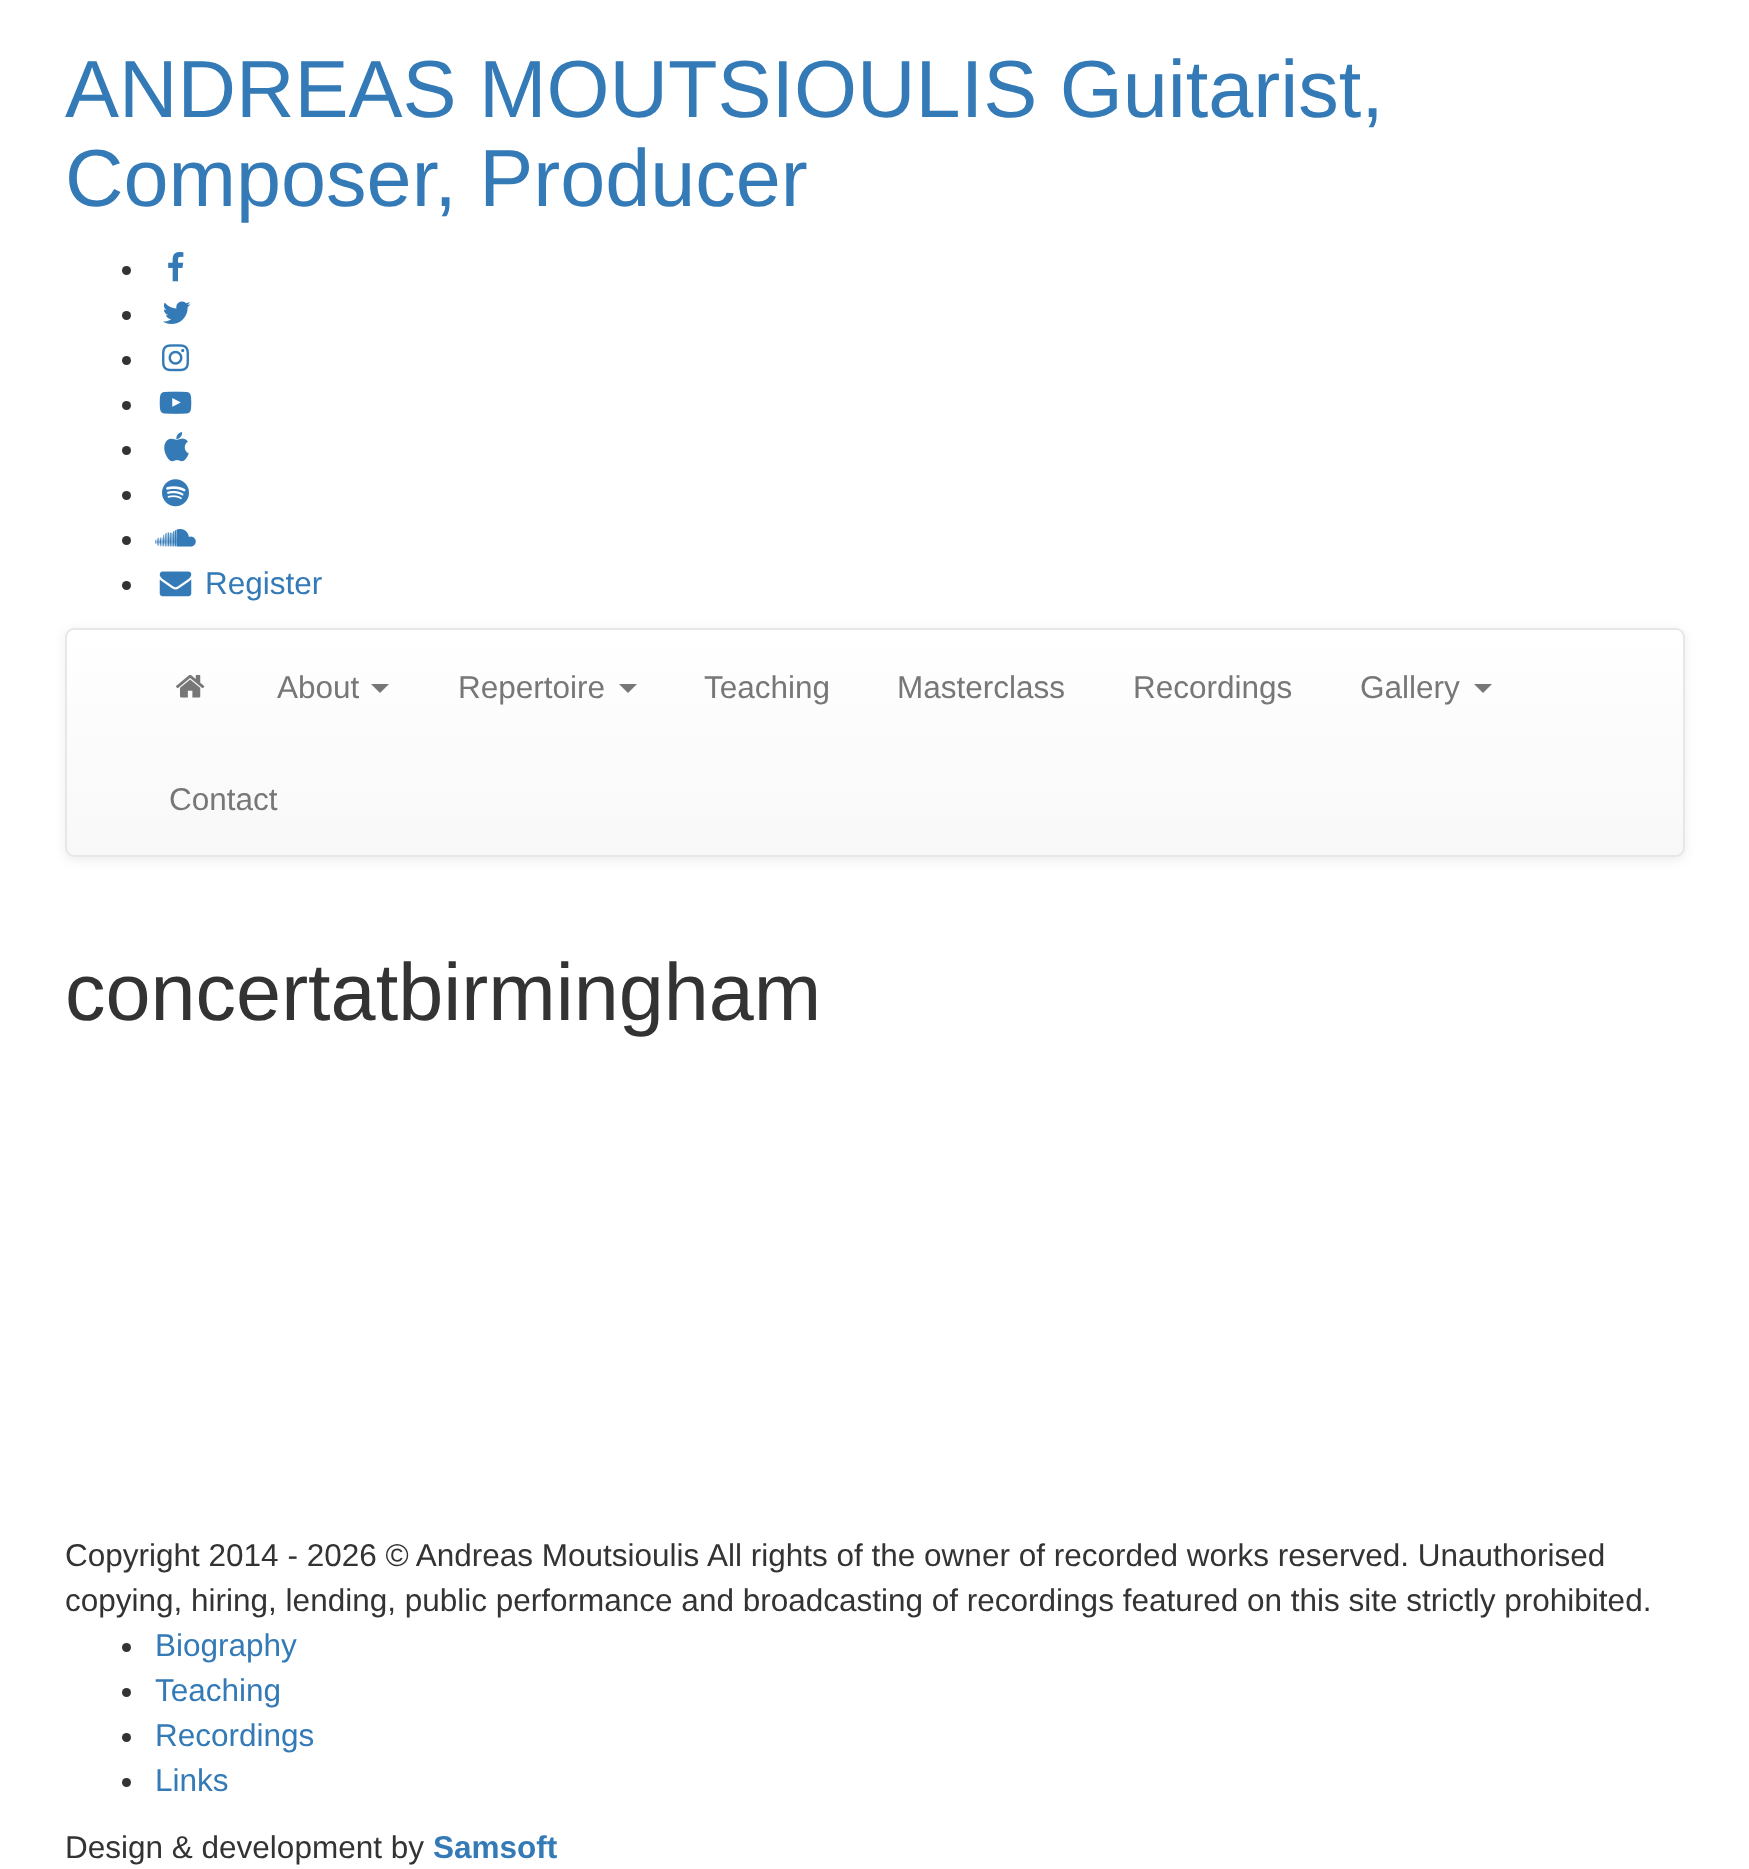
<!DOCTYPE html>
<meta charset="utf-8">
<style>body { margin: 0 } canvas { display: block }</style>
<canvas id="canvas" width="1749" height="1869"></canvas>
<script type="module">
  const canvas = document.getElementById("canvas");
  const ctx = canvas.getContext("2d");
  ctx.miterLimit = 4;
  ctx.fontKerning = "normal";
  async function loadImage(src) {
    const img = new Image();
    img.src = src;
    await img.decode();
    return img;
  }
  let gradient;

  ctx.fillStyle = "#ffffff";
  ctx.fillRect(0, 0, 1749, 1869);
  ctx.font = "81px Liberation Sans";
  ctx.fillStyle = "#337ab7";
  ctx.fillText("ANDREAS MOUTSIOULIS Guitarist,", 65, 117);
  ctx.fillText("Composer, Producer", 65, 206);
  ctx.fillStyle = "#333333";
  ctx.beginPath();
  ctx.arc(126.5, 270.5, 4.5, 0, Math.PI * 2);
  ctx.fill();
  ctx.drawImage(await loadImage("img1.png"), 168, 252, 16, 30);
  ctx.beginPath();
  ctx.arc(126.5, 315.5, 4.5, 0, Math.PI * 2);
  ctx.fill();
  ctx.drawImage(await loadImage("img2.png"), 163, 301, 28, 23);
  ctx.beginPath();
  ctx.arc(126.5, 360.5, 4.5, 0, Math.PI * 2);
  ctx.fill();
  ctx.drawImage(await loadImage("img3.png"), 162, 344, 27, 28);
  ctx.beginPath();
  ctx.arc(126.5, 405.5, 4.5, 0, Math.PI * 2);
  ctx.fill();
  ctx.drawImage(await loadImage("img4.png"), 159, 391, 33, 23);
  ctx.beginPath();
  ctx.arc(126.5, 450.5, 4.5, 0, Math.PI * 2);
  ctx.fill();
  ctx.drawImage(await loadImage("img5.png"), 164, 432, 25, 30);
  ctx.beginPath();
  ctx.arc(126.5, 495.5, 4.5, 0, Math.PI * 2);
  ctx.fill();
  ctx.drawImage(await loadImage("img6.png"), 162, 479, 27, 28);
  ctx.beginPath();
  ctx.arc(126.5, 540.5, 4.5, 0, Math.PI * 2);
  ctx.fill();
  ctx.drawImage(await loadImage("img7.png"), 155, 529, 41, 18);
  ctx.beginPath();
  ctx.arc(126.5, 585.5, 4.5, 0, Math.PI * 2);
  ctx.fill();
  ctx.drawImage(await loadImage("img8.png"), 159, 571, 33, 26);
  ctx.font = "31.5px Liberation Sans";
  ctx.fillStyle = "#337ab7";
  ctx.fillText("Register", 205, 594);
  ctx.fillStyle = "rgba(0, 0, 0, 0.07)";
  ctx.filter = "blur(5.5px)";
  ctx.beginPath();
  ctx.roundRect(65, 630, 1620, 230, 9);
  ctx.fill();
  ctx.filter = "none";
  ctx.save();
  ctx.beginPath();
  ctx.roundRect(65, 628, 1620, 229, 9);
  ctx.clip();
  gradient = ctx.createLinearGradient(875, 630, 875, 855);
  gradient.addColorStop(0, "#ffffff");
  gradient.addColorStop(1, "#f8f8f8");
  ctx.fillStyle = gradient;
  ctx.fillRect(65, 630, 1620, 225);
  ctx.restore();
  ctx.beginPath();
  ctx.roundRect(66, 629, 1618, 227, 8);
  ctx.strokeStyle = "#e7e7e7";
  ctx.lineWidth = 2;
  ctx.stroke();
  ctx.drawImage(await loadImage("img9.png"), 176, 675, 29, 23);
  ctx.fillStyle = "#777777";
  ctx.fillText("About", 277, 698);
  ctx.beginPath();
  ctx.moveTo(371, 684);
  ctx.lineTo(389, 684);
  ctx.lineTo(380, 693);
  ctx.closePath();
  ctx.fill();
  ctx.fillText("Repertoire", 458, 698);
  ctx.beginPath();
  ctx.moveTo(619, 684);
  ctx.lineTo(637, 684);
  ctx.lineTo(628, 693);
  ctx.closePath();
  ctx.fill();
  ctx.fillText("Teaching", 704, 698);
  ctx.fillText("Masterclass", 897, 698);
  ctx.fillText("Recordings", 1133, 698);
  ctx.fillText("Gallery", 1360, 698);
  ctx.beginPath();
  ctx.moveTo(1474, 684);
  ctx.lineTo(1492, 684);
  ctx.lineTo(1483, 693);
  ctx.closePath();
  ctx.fill();
  ctx.fillText("Contact", 169, 810);
  ctx.font = "81px Liberation Sans";
  ctx.fillStyle = "#333333";
  ctx.fillText("concertatbirmingham", 65, 1020);
  ctx.font = "31.5px Liberation Sans";
  ctx.fillText("Copyright 2014 - 2026 © Andreas Moutsioulis", 65, 1566);
  ctx.fillText("All rights of the owner of recorded works reserved. Unauthorised", 707, 1566);
  ctx.fillText("copying, hiring, lending, public performance and broadcasting of recordings featured on this site strictly prohibited.", 65, 1611);
  ctx.beginPath();
  ctx.arc(126.5, 1647.5, 4.5, 0, Math.PI * 2);
  ctx.fill();
  ctx.fillStyle = "#337ab7";
  ctx.fillText("Biography", 155, 1656);
  ctx.fillStyle = "#333333";
  ctx.beginPath();
  ctx.arc(126.5, 1692.5, 4.5, 0, Math.PI * 2);
  ctx.fill();
  ctx.fillStyle = "#337ab7";
  ctx.fillText("Teaching", 155, 1701);
  ctx.fillStyle = "#333333";
  ctx.beginPath();
  ctx.arc(126.5, 1737.5, 4.5, 0, Math.PI * 2);
  ctx.fill();
  ctx.fillStyle = "#337ab7";
  ctx.fillText("Recordings", 155, 1746);
  ctx.fillStyle = "#333333";
  ctx.beginPath();
  ctx.arc(126.5, 1782.5, 4.5, 0, Math.PI * 2);
  ctx.fill();
  ctx.fillStyle = "#337ab7";
  ctx.fillText("Links", 155, 1791);
  ctx.fillStyle = "#333333";
  ctx.fillText("Design & development by", 65, 1858);
  ctx.font = "bold 31.5px Liberation Sans";
  ctx.fillStyle = "#337ab7";
  ctx.fillText("Samsoft", 433, 1858);
</script>
